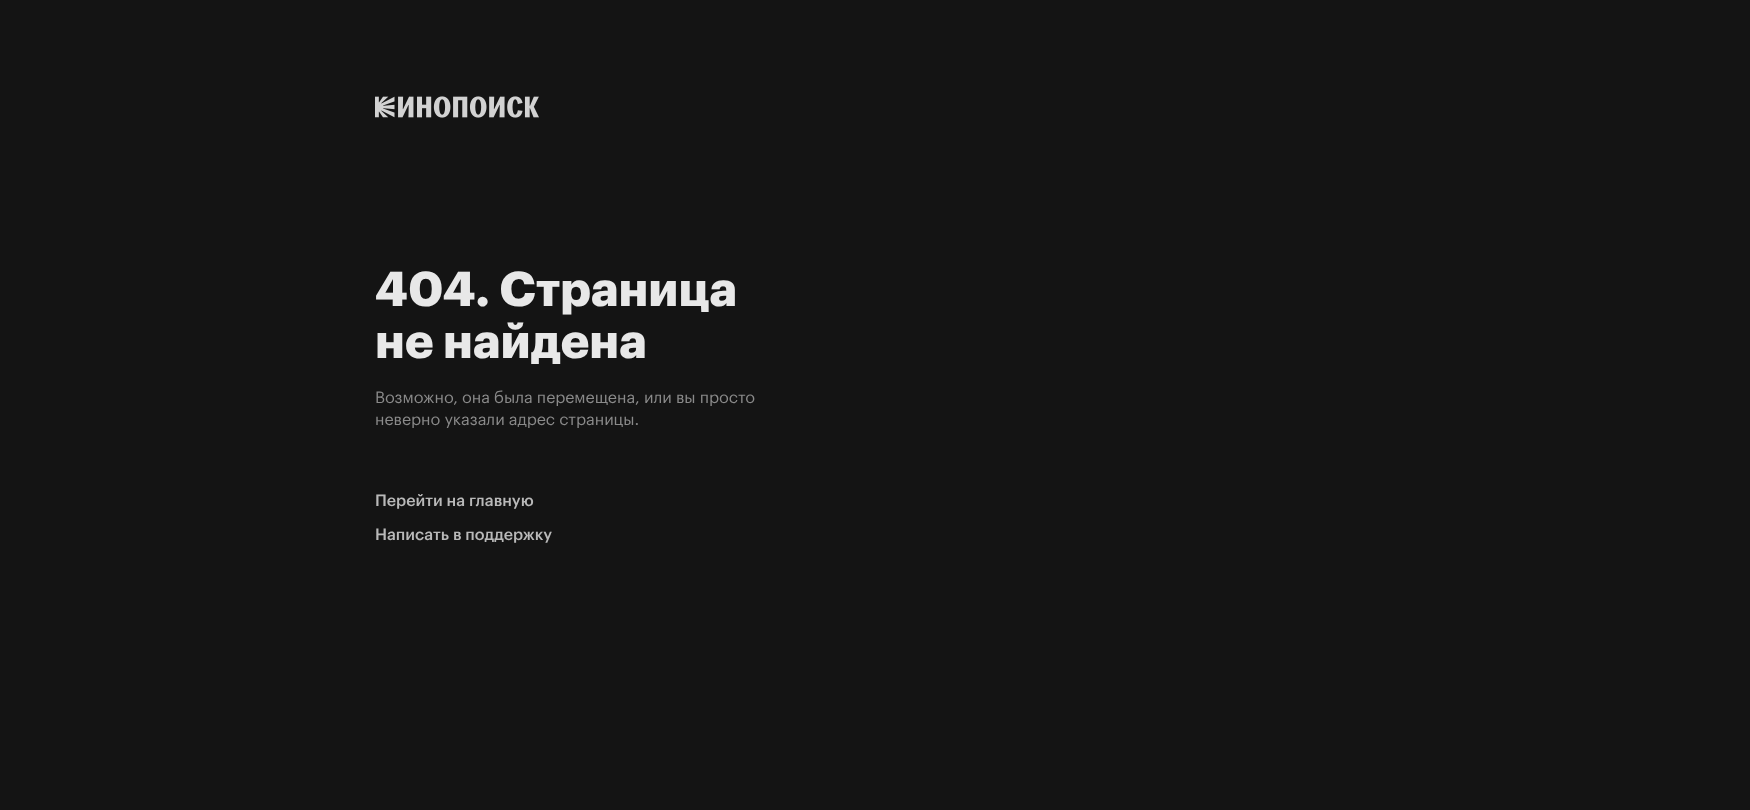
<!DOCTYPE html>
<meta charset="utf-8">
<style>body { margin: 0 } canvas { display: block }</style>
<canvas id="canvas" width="1750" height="810"></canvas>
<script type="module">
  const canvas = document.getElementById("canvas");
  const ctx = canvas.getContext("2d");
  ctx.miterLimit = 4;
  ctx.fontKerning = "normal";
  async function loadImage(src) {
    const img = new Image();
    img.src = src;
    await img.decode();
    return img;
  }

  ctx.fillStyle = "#141414";
  ctx.fillRect(0, 0, 1750, 810);
  ctx.drawImage(await loadImage("img1.png"), 375, 96, 164, 22);
  ctx.font = "bold 48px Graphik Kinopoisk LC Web";
  ctx.fillStyle = "#e8e8e8";
  ctx.fillText("404. Страница", 375, 306);
  ctx.fillText("не найдена", 375, 358);
  ctx.font = "16px Graphik Kinopoisk LC Web";
  ctx.fillStyle = "#8a8a8a";
  ctx.fillText("Возможно, она была перемещена, или вы просто", 375, 403);
  ctx.fillText("неверно указали адрес страницы.", 375, 425);
  ctx.font = "500 16px Graphik Kinopoisk LC Web";
  ctx.fillStyle = "#b9b9b9";
  ctx.fillText("Перейти на главную", 375, 506);
  ctx.fillText("Написать в поддержку", 375, 540);
</script>
